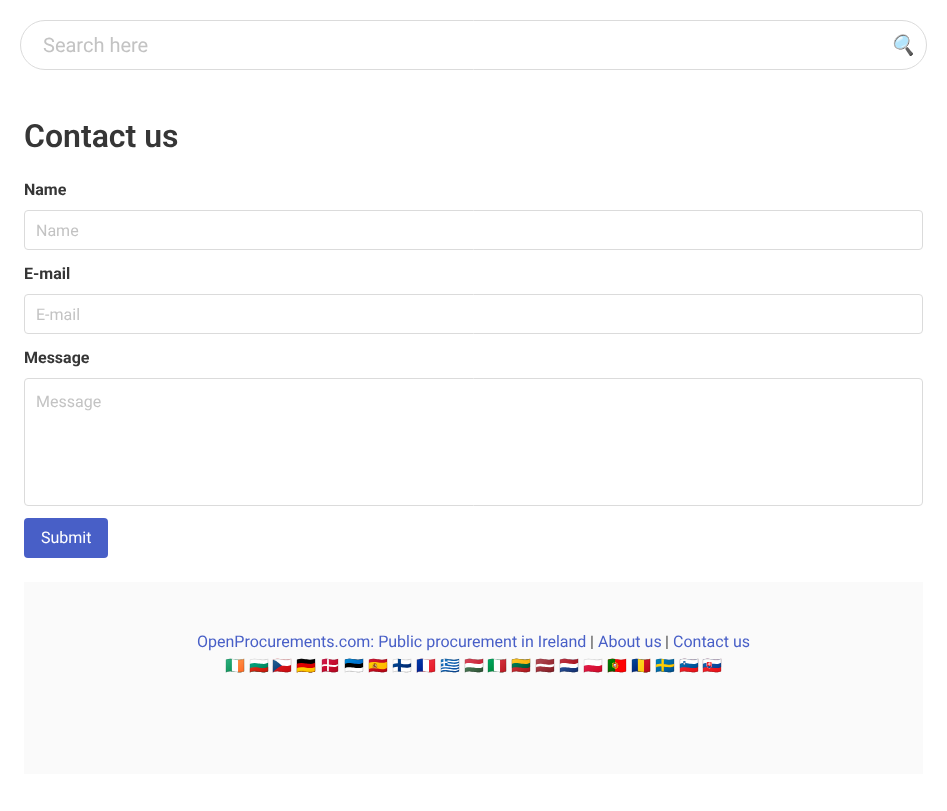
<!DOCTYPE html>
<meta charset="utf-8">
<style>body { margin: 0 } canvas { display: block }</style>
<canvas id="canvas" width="947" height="811"></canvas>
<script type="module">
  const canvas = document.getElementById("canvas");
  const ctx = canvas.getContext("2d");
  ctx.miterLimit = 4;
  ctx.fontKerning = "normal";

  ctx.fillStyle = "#ffffff";
  ctx.fillRect(0, 0, 947, 811);
  ctx.beginPath();
  ctx.roundRect(20.5, 20.5, 906, 49, 24.5);
  ctx.strokeStyle = "#dbdbdb";
  ctx.stroke();
  ctx.font = "20px Roboto";
  ctx.fillStyle = "#c3c3c3";
  ctx.fillText("Search here", 43, 52);
  ctx.font = "italic 20px Noto Color Emoji";
  ctx.fillStyle = "#dbdbdb";
  ctx.fillText("🔍", 890, 52);
  ctx.font = "600 32px Roboto";
  ctx.fillStyle = "#363636";
  ctx.fillText("Contact us", 24, 147);
  ctx.font = "bold 16px Roboto";
  ctx.fillText("Name", 24, 195);
  ctx.beginPath();
  ctx.roundRect(24.5, 210.5, 898, 39, 3.5);
  ctx.stroke();
  ctx.font = "16px Roboto";
  ctx.fillStyle = "#c3c3c3";
  ctx.fillText("Name", 36, 236);
  ctx.font = "bold 16px Roboto";
  ctx.fillStyle = "#363636";
  ctx.fillText("E-mail", 24, 279);
  ctx.beginPath();
  ctx.roundRect(24.5, 294.5, 898, 39, 3.5);
  ctx.stroke();
  ctx.font = "16px Roboto";
  ctx.fillStyle = "#c3c3c3";
  ctx.fillText("E-mail", 36, 320);
  ctx.font = "bold 16px Roboto";
  ctx.fillStyle = "#363636";
  ctx.fillText("Message", 24, 363);
  ctx.beginPath();
  ctx.roundRect(24.5, 378.5, 898, 127, 3.5);
  ctx.stroke();
  ctx.font = "16px Roboto";
  ctx.fillStyle = "#c3c3c3";
  ctx.fillText("Message", 36, 407);
  ctx.fillStyle = "#485fc7";
  ctx.beginPath();
  ctx.roundRect(24, 518, 84, 40, 4);
  ctx.fill();
  ctx.fillStyle = "#ffffff";
  ctx.fillText("Submit", 41, 543);
  ctx.fillStyle = "#fafafa";
  ctx.fillRect(24, 582, 899, 192);
  ctx.fillStyle = "#485fc7";
  ctx.fillText("OpenProcurements.com: Public procurement in Ireland", 197, 647);
  ctx.fillStyle = "#4a4a4a";
  ctx.fillText("|", 590, 647);
  ctx.fillStyle = "#485fc7";
  ctx.fillText("About us", 598, 647);
  ctx.fillStyle = "#4a4a4a";
  ctx.fillText("|", 665, 647);
  ctx.fillStyle = "#485fc7";
  ctx.fillText("Contact us", 673, 647);
  ctx.font = "16px Noto Color Emoji";
  ctx.fillText("🇮🇪", 225, 671);
  ctx.fillText("🇧🇬", 249, 671);
  ctx.fillText("🇨🇿", 272, 671);
  ctx.fillText("🇩🇪", 296, 671);
  ctx.fillText("🇩🇰", 320, 671);
  ctx.fillText("🇪🇪", 344, 671);
  ctx.fillText("🇪🇸", 368, 671);
  ctx.fillText("🇫🇮", 392, 671);
  ctx.fillText("🇫🇷", 416, 671);
  ctx.fillText("🇬🇷", 440, 671);
  ctx.fillText("🇭🇺", 464, 671);
  ctx.fillText("🇮🇹", 487, 671);
  ctx.fillText("🇱🇹", 511, 671);
  ctx.fillText("🇱🇻", 535, 671);
  ctx.fillText("🇳🇱", 559, 671);
  ctx.fillText("🇵🇱", 583, 671);
  ctx.fillText("🇵🇹", 607, 671);
  ctx.fillText("🇷🇴", 631, 671);
  ctx.fillText("🇸🇪", 655, 671);
  ctx.fillText("🇸🇮", 679, 671);
  ctx.fillText("🇸🇰", 702, 671);
</script>
